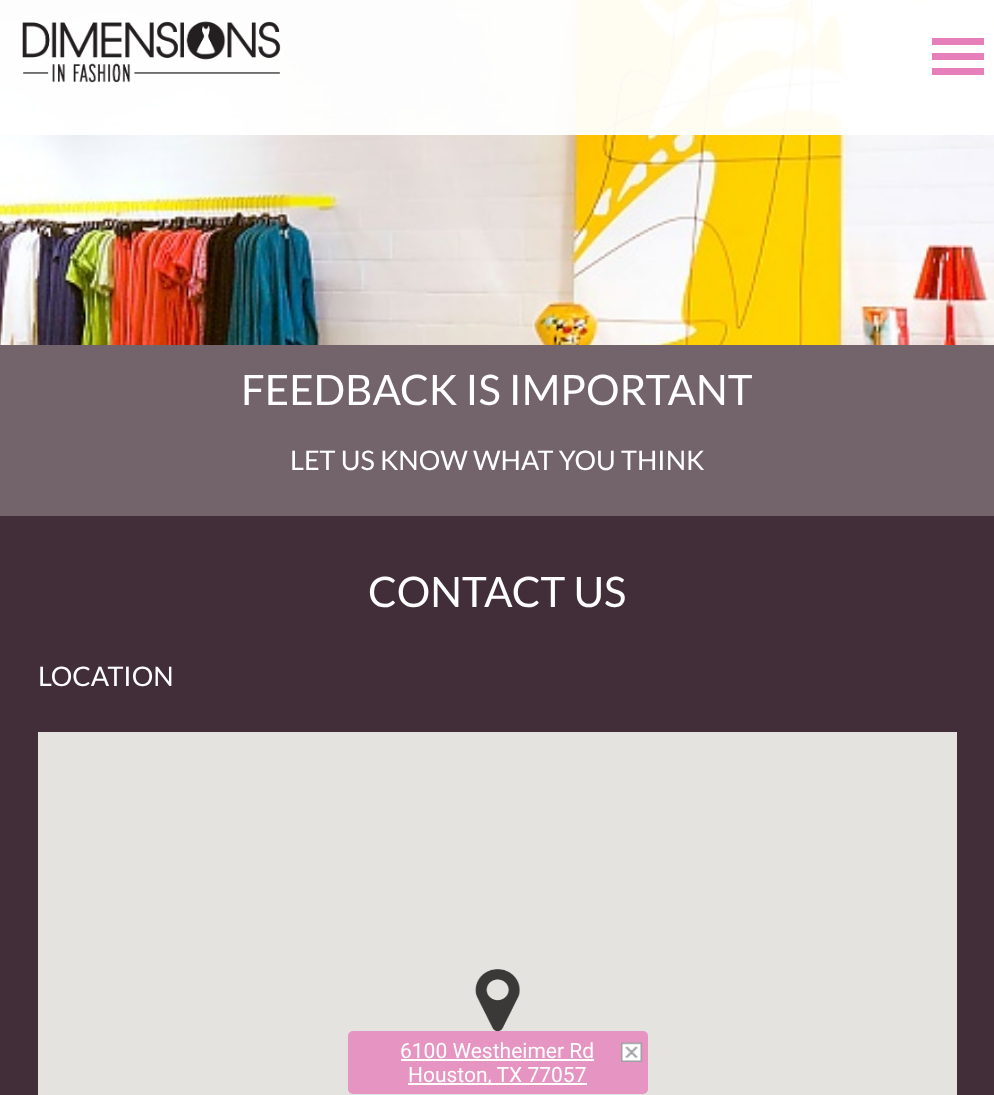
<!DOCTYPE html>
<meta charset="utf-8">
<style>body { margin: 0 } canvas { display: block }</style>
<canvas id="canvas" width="994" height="1095"></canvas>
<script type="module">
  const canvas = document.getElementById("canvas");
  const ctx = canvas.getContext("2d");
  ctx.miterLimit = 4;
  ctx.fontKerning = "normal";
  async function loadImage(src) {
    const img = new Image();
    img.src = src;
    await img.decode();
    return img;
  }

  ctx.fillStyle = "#ffffff";
  ctx.fillRect(0, 0, 994, 1095);
  ctx.drawImage(await loadImage("img1.png"), 0, 0, 994, 345);
  ctx.fillStyle = "rgba(255, 255, 255, 0.95)";
  ctx.fillRect(0, 0, 994, 135);
  ctx.drawImage(await loadImage("img2.png"), 22, 21, 259, 62);
  ctx.fillStyle = "#e67fb9";
  ctx.fillRect(932, 38, 52, 7);
  ctx.fillRect(932, 53, 52, 7);
  ctx.fillRect(932, 68, 52, 7);
  ctx.fillStyle = "#73636b";
  ctx.fillRect(0, 345, 994, 171);
  ctx.font = "42px Lato";
  ctx.fillStyle = "#ffffff";
  ctx.fillText("FEEDBACK IS IMPORTANT", 241, 405);
  ctx.font = "27px Lato";
  ctx.fillText("LET US KNOW WHAT YOU THINK", 290, 470);
  ctx.fillStyle = "#422e39";
  ctx.fillRect(0, 516, 994, 579);
  ctx.font = "42px Lato";
  ctx.fillStyle = "#ffffff";
  ctx.fillText("CONTACT US", 368, 607);
  ctx.font = "27px Lato";
  ctx.fillText("LOCATION", 38, 686);
  ctx.fillStyle = "#e5e3df";
  ctx.fillRect(38, 732, 919, 363);
  ctx.drawImage(await loadImage("img3.png"), 475, 969, 45, 63);
  ctx.fillStyle = "rgba(230, 127, 185, 0.8)";
  ctx.beginPath();
  ctx.roundRect(348, 1031, 300, 63, 5);
  ctx.fill();
  ctx.font = "21px Roboto";
  ctx.fillStyle = "#ffffff";
  ctx.fillText("6100 Westheimer Rd", 400, 1058);
  ctx.fillRect(401, 1059, 193, 2);
  ctx.drawImage(await loadImage("img4.png"), 621, 1042, 22, 20);
  ctx.fillRect(408, 1083, 179, 2);
  ctx.fillText("Houston, TX 77057", 408, 1082);
</script>
